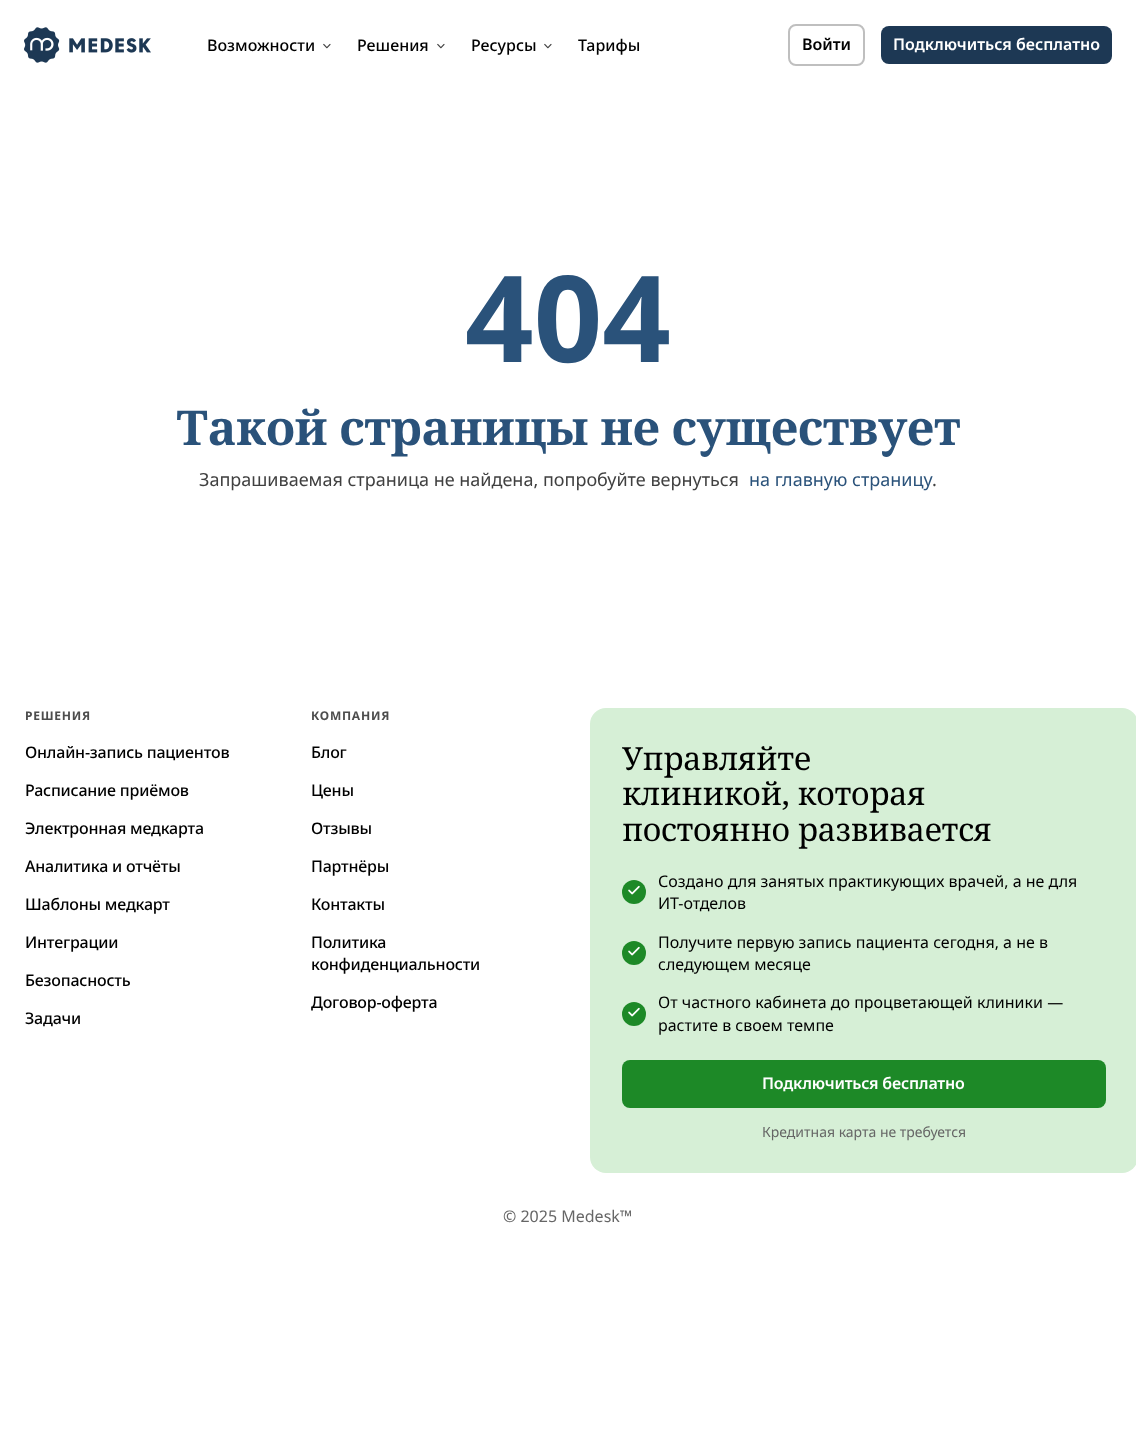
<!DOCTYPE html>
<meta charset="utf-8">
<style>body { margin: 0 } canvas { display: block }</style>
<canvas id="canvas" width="1136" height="1433"></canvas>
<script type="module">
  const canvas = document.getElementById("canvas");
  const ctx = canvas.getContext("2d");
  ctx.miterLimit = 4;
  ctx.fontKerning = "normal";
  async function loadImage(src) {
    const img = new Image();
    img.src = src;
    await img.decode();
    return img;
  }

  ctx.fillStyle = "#ffffff";
  ctx.fillRect(0, 0, 1136, 1433);
  ctx.drawImage(await loadImage("img1.png"), 24, 27, 127, 36);
  ctx.font = "500 16px Noto Sans";
  ctx.fillStyle = "#000000";
  ctx.fillText("Возможности", 207, 51);
  ctx.drawImage(await loadImage("img2.png"), 323, 43, 8, 6);
  ctx.fillText("Решения", 357, 51);
  ctx.drawImage(await loadImage("img2.png"), 437, 43, 8, 6);
  ctx.fillText("Ресурсы", 471, 51);
  ctx.drawImage(await loadImage("img2.png"), 544, 43, 8, 6);
  ctx.fillText("Тарифы", 578, 51);
  ctx.beginPath();
  ctx.roundRect(789, 25, 75, 40, 7);
  ctx.strokeStyle = "#bfbfbf";
  ctx.lineWidth = 2;
  ctx.stroke();
  ctx.font = "600 16px Noto Sans";
  ctx.fillText("Войти", 802, 50);
  ctx.fillStyle = "#1d3854";
  ctx.beginPath();
  ctx.roundRect(881, 26, 231, 38, 8);
  ctx.fill();
  ctx.fillStyle = "#ffffff";
  ctx.fillText("Подключиться бесплатно", 893, 50);
  ctx.font = "bold 120px Noto Sans";
  ctx.fillStyle = "#2a527a";
  ctx.fillText("404", 465, 362);
  ctx.letterSpacing = "-0.2px";
  ctx.font = "bold 48px Noto Serif";
  ctx.fillText("Такой страницы не существует", 176, 445);
  ctx.letterSpacing = "0px";
  ctx.font = "18px Noto Sans";
  ctx.fillStyle = "#404040";
  ctx.fillText("Запрашиваемая страница не найдена, попробуйте вернуться", 199, 486);
  ctx.fillStyle = "#2a527a";
  ctx.fillText("на главную страницу", 749, 486);
  ctx.fillStyle = "#404040";
  ctx.fillText(".", 932, 486);
  ctx.letterSpacing = "0.75px";
  ctx.font = "bold 12px Noto Sans";
  ctx.fillStyle = "#4d4d4d";
  ctx.fillText("РЕШЕНИЯ", 25, 720);
  ctx.letterSpacing = "-0.2px";
  ctx.font = "500 16px Noto Sans";
  ctx.fillStyle = "#000000";
  ctx.fillText("Онлайн-запись пациентов", 25, 758);
  ctx.fillText("Расписание приёмов", 25, 796);
  ctx.fillText("Электронная медкарта", 25, 834);
  ctx.fillText("Аналитика и отчёты", 25, 872);
  ctx.fillText("Шаблоны медкарт", 25, 910);
  ctx.fillText("Интеграции", 25, 948);
  ctx.fillText("Безопасность", 25, 986);
  ctx.fillText("Задачи", 25, 1024);
  ctx.letterSpacing = "0.75px";
  ctx.font = "bold 12px Noto Sans";
  ctx.fillStyle = "#4d4d4d";
  ctx.fillText("КОМПАНИЯ", 311, 720);
  ctx.letterSpacing = "-0.2px";
  ctx.font = "500 16px Noto Sans";
  ctx.fillStyle = "#000000";
  ctx.fillText("Блог", 311, 758);
  ctx.fillText("Цены", 311, 796);
  ctx.fillText("Отзывы", 311, 834);
  ctx.fillText("Партнёры", 311, 872);
  ctx.fillText("Контакты", 311, 910);
  ctx.fillText("Политика", 311, 948);
  ctx.fillText("конфиденциальности", 311, 970);
  ctx.fillText("Договор-оферта", 311, 1008);
  ctx.fillStyle = "#d6efd6";
  ctx.beginPath();
  ctx.roundRect(590, 708, 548, 465, 16);
  ctx.fill();
  ctx.letterSpacing = "-0.3px";
  ctx.font = "32px Noto Serif";
  ctx.fillStyle = "#000000";
  ctx.fillText("Управляйте", 622, 770);
  ctx.fillText("клиникой, которая", 622, 805);
  ctx.fillText("постоянно развивается", 622, 841);
  ctx.fillStyle = "#1d8927";
  ctx.beginPath();
  ctx.arc(634, 892, 12, 0, Math.PI * 2);
  ctx.fill();
  ctx.drawImage(await loadImage("img3.png"), 628, 885, 12, 10);
  ctx.letterSpacing = "0px";
  ctx.font = "16px Noto Sans";
  ctx.fillStyle = "#000000";
  ctx.fillText("Создано для занятых практикующих врачей, а не для", 658, 887);
  ctx.fillText("ИТ-отделов", 658, 909);
  ctx.fillStyle = "#1d8927";
  ctx.beginPath();
  ctx.arc(634, 953, 12, 0, Math.PI * 2);
  ctx.fill();
  ctx.drawImage(await loadImage("img3.png"), 628, 946, 12, 10);
  ctx.fillStyle = "#000000";
  ctx.fillText("Получите первую запись пациента сегодня, а не в", 658, 948);
  ctx.fillText("следующем месяце", 658, 970);
  ctx.fillStyle = "#1d8927";
  ctx.beginPath();
  ctx.arc(634, 1014, 12, 0, Math.PI * 2);
  ctx.fill();
  ctx.drawImage(await loadImage("img3.png"), 628, 1007, 12, 10);
  ctx.fillStyle = "#000000";
  ctx.fillText("От частного кабинета до процветающей клиники —", 658, 1008);
  ctx.fillText("растите в своем темпе", 658, 1031);
  ctx.fillStyle = "#1d8927";
  ctx.beginPath();
  ctx.roundRect(622, 1060, 484, 48, 8);
  ctx.fill();
  ctx.letterSpacing = "-0.2px";
  ctx.font = "600 16px Noto Sans";
  ctx.fillStyle = "#ffffff";
  ctx.fillText("Подключиться бесплатно", 762, 1089);
  ctx.letterSpacing = "0px";
  ctx.font = "14px Noto Sans";
  ctx.fillStyle = "#666666";
  ctx.fillText("Кредитная карта не требуется", 762, 1137);
  ctx.font = "16px Noto Sans";
  ctx.fillText("© 2025 Medesk™", 503, 1222);
</script>
